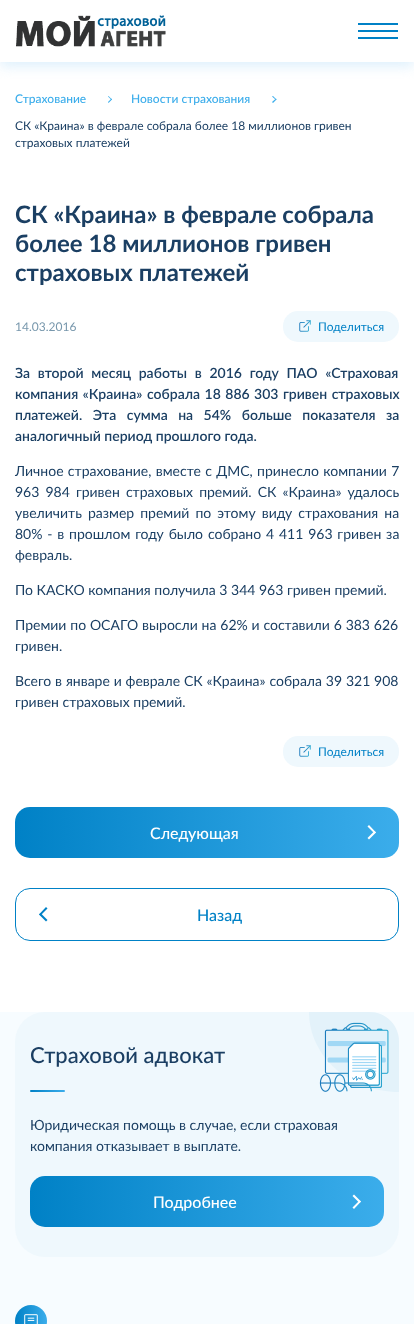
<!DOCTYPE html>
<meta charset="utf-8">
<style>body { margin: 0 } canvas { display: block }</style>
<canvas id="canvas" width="414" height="1324"></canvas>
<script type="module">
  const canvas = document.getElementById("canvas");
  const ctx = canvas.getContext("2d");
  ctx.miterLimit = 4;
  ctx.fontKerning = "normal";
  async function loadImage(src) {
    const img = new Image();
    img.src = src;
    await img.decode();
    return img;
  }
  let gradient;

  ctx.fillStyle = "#ffffff";
  ctx.fillRect(0, 0, 414, 1324);
  ctx.save();
  ctx.beginPath();
  ctx.rect(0, 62, 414, 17);
  ctx.clip();
  ctx.fillStyle = "#dceffc";
  ctx.filter = "blur(6.5px)";
  ctx.beginPath();
  ctx.rect(0, 4, 414, 62);
  ctx.fill();
  ctx.filter = "none";
  ctx.restore();
  ctx.drawImage(await loadImage("img1.png"), 16, 15, 150, 32);
  ctx.fillStyle = "#0081c6";
  ctx.fillRect(358, 23, 40, 2);
  ctx.fillRect(358, 30, 40, 2);
  ctx.fillRect(358, 37, 40, 2);
  ctx.font = "500 12px Lato";
  ctx.fillStyle = "#3badeb";
  ctx.fillText("Страхование", 15, 103);
  ctx.beginPath();
  ctx.moveTo(108, 96.5);
  ctx.lineTo(108.5, 96);
  ctx.lineTo(112, 99.5);
  ctx.lineTo(111.5, 100);
  ctx.closePath();
  ctx.fill();
  ctx.beginPath();
  ctx.moveTo(108, 102);
  ctx.lineTo(111.5, 98.5);
  ctx.lineTo(112, 99.5);
  ctx.lineTo(108.5, 103);
  ctx.closePath();
  ctx.fill();
  ctx.fillText("Новости страхования", 131, 103);
  ctx.beginPath();
  ctx.moveTo(272, 96.5);
  ctx.lineTo(273, 96);
  ctx.lineTo(276.5, 99.5);
  ctx.lineTo(276, 100);
  ctx.closePath();
  ctx.fill();
  ctx.beginPath();
  ctx.moveTo(272, 102);
  ctx.lineTo(276, 98.5);
  ctx.lineTo(276.5, 99.5);
  ctx.lineTo(273, 103);
  ctx.closePath();
  ctx.fill();
  ctx.font = "12px Lato";
  ctx.fillStyle = "#1b3f63";
  ctx.fillText("СК «Краина» в феврале собрала более 18 миллионов гривен", 15, 130);
  ctx.fillText("страховых платежей", 15, 147);
  ctx.font = "bold 24px Lato";
  ctx.fillText("СК «Краина» в феврале собрала", 15, 223);
  ctx.fillText("более 18 миллионов гривен", 15, 252);
  ctx.fillText("страховых платежей", 15, 281);
  ctx.font = "12px Lato";
  ctx.fillStyle = "#7797ac";
  ctx.fillText("14.03.2016", 15, 331);
  ctx.fillStyle = "#eff8fd";
  ctx.beginPath();
  ctx.roundRect(283, 311, 116, 31, 15);
  ctx.fill();
  ctx.drawImage(await loadImage("img2.png"), 299, 320, 12, 12);
  ctx.fillStyle = "#0081c6";
  ctx.fillText("Поделиться", 318, 331);
  ctx.wordSpacing = "4.25px";
  ctx.font = "600 14px Lato";
  ctx.fillStyle = "#1b3f63";
  ctx.fillText("За второй месяц работы в 2016 году ПАО «Страховая", 15, 378);
  ctx.wordSpacing = "1px";
  ctx.fillText("компания «Краина» собрала 18 886 303 гривен страховых", 15, 399);
  ctx.wordSpacing = "7px";
  ctx.fillText("платежей. Эта сумма на 54% больше показателя за", 15, 420);
  ctx.wordSpacing = "0px";
  ctx.fillText("аналогичный период прошлого года.", 15, 441);
  ctx.wordSpacing = "0.75px";
  ctx.font = "14px Lato";
  ctx.fillText("Личное страхование, вместе с ДМС, принесло компании 7", 15, 476);
  ctx.wordSpacing = "2.5px";
  ctx.fillText("963 984 гривен страховых премий. СК «Краина» удалось", 15, 497);
  ctx.fillText("увеличить размер премий по этому виду страхования на", 15, 518);
  ctx.wordSpacing = "1.25px";
  ctx.fillText("80% - в прошлом году было собрано 4 411 963 гривен за", 15, 539);
  ctx.wordSpacing = "0px";
  ctx.fillText("февраль.", 15, 560);
  ctx.fillText("По КАСКО компания получила 3 344 963 гривен премий.", 15, 595);
  ctx.wordSpacing = "0.25px";
  ctx.fillText("Премии по ОСАГО выросли на 62% и составили 6 383 626", 15, 630);
  ctx.wordSpacing = "0px";
  ctx.fillText("гривен.", 15, 651);
  ctx.wordSpacing = "0.25px";
  ctx.fillText("Всего в январе и феврале СК «Краина» собрала 39 321 908", 15, 686);
  ctx.wordSpacing = "0px";
  ctx.fillText("гривен страховых премий.", 15, 707);
  ctx.fillStyle = "#eff8fd";
  ctx.beginPath();
  ctx.roundRect(283, 736, 116, 31, 15);
  ctx.fill();
  ctx.drawImage(await loadImage("img2.png"), 299, 745, 12, 12);
  ctx.font = "12px Lato";
  ctx.fillStyle = "#0081c6";
  ctx.fillText("Поделиться", 318, 756);
  gradient = ctx.createLinearGradient(15, 833, 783, 833);
  gradient.addColorStop(0, "#0081c6");
  gradient.addColorStop(0.5, "#3badeb");
  ctx.fillStyle = gradient;
  ctx.beginPath();
  ctx.roundRect(15, 807, 384, 51, 15);
  ctx.fill();
  ctx.font = "500 16px Lato";
  ctx.fillStyle = "#ffffff";
  ctx.fillText("Следующая", 150, 839);
  ctx.beginPath();
  ctx.moveTo(367.5, 826.5);
  ctx.lineTo(369, 825);
  ctx.lineTo(376, 832.5);
  ctx.lineTo(374.5, 833.5);
  ctx.closePath();
  ctx.fill();
  ctx.beginPath();
  ctx.moveTo(367.5, 838);
  ctx.lineTo(374.5, 831);
  ctx.lineTo(376, 832.5);
  ctx.lineTo(369, 839.5);
  ctx.closePath();
  ctx.fill();
  ctx.beginPath();
  ctx.roundRect(15.5, 888.5, 383, 52, 14.5);
  ctx.strokeStyle = "#0081c6";
  ctx.stroke();
  ctx.fillStyle = "#0081c6";
  ctx.beginPath();
  ctx.moveTo(39, 914.5);
  ctx.lineTo(46, 907);
  ctx.lineTo(47.5, 908.5);
  ctx.lineTo(40.5, 915.5);
  ctx.closePath();
  ctx.fill();
  ctx.beginPath();
  ctx.moveTo(39, 914.5);
  ctx.lineTo(40.5, 913);
  ctx.lineTo(47.5, 920);
  ctx.lineTo(46, 921.5);
  ctx.closePath();
  ctx.fill();
  ctx.fillText("Назад", 197, 921);
  ctx.fillStyle = "#f7fcff";
  ctx.fillRect(0, 1012, 414, 312);
  ctx.fillStyle = "#eff8fd";
  ctx.beginPath();
  ctx.roundRect(15, 1012, 384, 245, 30);
  ctx.fill();
  ctx.fillStyle = "#e3f2fa";
  ctx.beginPath();
  ctx.moveTo(309, 1012);
  ctx.lineTo(369, 1012);
  ctx.bezierCurveTo(386, 1012, 399, 1025, 399, 1042);
  ctx.lineTo(399, 1092);
  ctx.bezierCurveTo(349, 1092, 309, 1056, 309, 1012);
  ctx.closePath();
  ctx.fill();
  ctx.font = "500 22px Lato";
  ctx.fillStyle = "#1b3f63";
  ctx.fillText("Страховой адвокат", 30, 1063);
  gradient = ctx.createLinearGradient(30, 1091, 65, 1091);
  gradient.addColorStop(0, "#0081c6");
  gradient.addColorStop(1, "#3badeb");
  ctx.fillStyle = gradient;
  ctx.beginPath();
  ctx.roundRect(30, 1090, 35, 2, 1);
  ctx.fill();
  ctx.drawImage(await loadImage("img3.png"), 319, 1022, 70, 70);
  ctx.font = "14px Lato";
  ctx.fillStyle = "#1b3f63";
  ctx.fillText("Юридическая помощь в случае, если страховая", 30, 1130);
  ctx.fillText("компания отказывает в выплате.", 30, 1151);
  gradient = ctx.createLinearGradient(30, 1202, 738, 1202);
  gradient.addColorStop(0, "#0081c6");
  gradient.addColorStop(0.5, "#3badeb");
  ctx.fillStyle = gradient;
  ctx.beginPath();
  ctx.roundRect(30, 1176, 354, 51, 15);
  ctx.fill();
  ctx.font = "500 16px Lato";
  ctx.fillStyle = "#ffffff";
  ctx.fillText("Подробнее", 153, 1208);
  ctx.beginPath();
  ctx.moveTo(352.5, 1196);
  ctx.lineTo(354, 1194.5);
  ctx.lineTo(361, 1201.5);
  ctx.lineTo(359.5, 1203);
  ctx.closePath();
  ctx.fill();
  ctx.beginPath();
  ctx.moveTo(352.5, 1207.5);
  ctx.lineTo(359.5, 1200.5);
  ctx.lineTo(361, 1201.5);
  ctx.lineTo(354, 1209);
  ctx.closePath();
  ctx.fill();
  gradient = ctx.createLinearGradient(15, 1321, 47, 1321);
  gradient.addColorStop(0, "#0081c6");
  gradient.addColorStop(1, "#3badeb");
  ctx.fillStyle = gradient;
  ctx.beginPath();
  ctx.arc(31, 1321, 16, 0, Math.PI * 2);
  ctx.fill();
  ctx.drawImage(await loadImage("img4.png"), 24, 1314, 14, 10);
</script>
